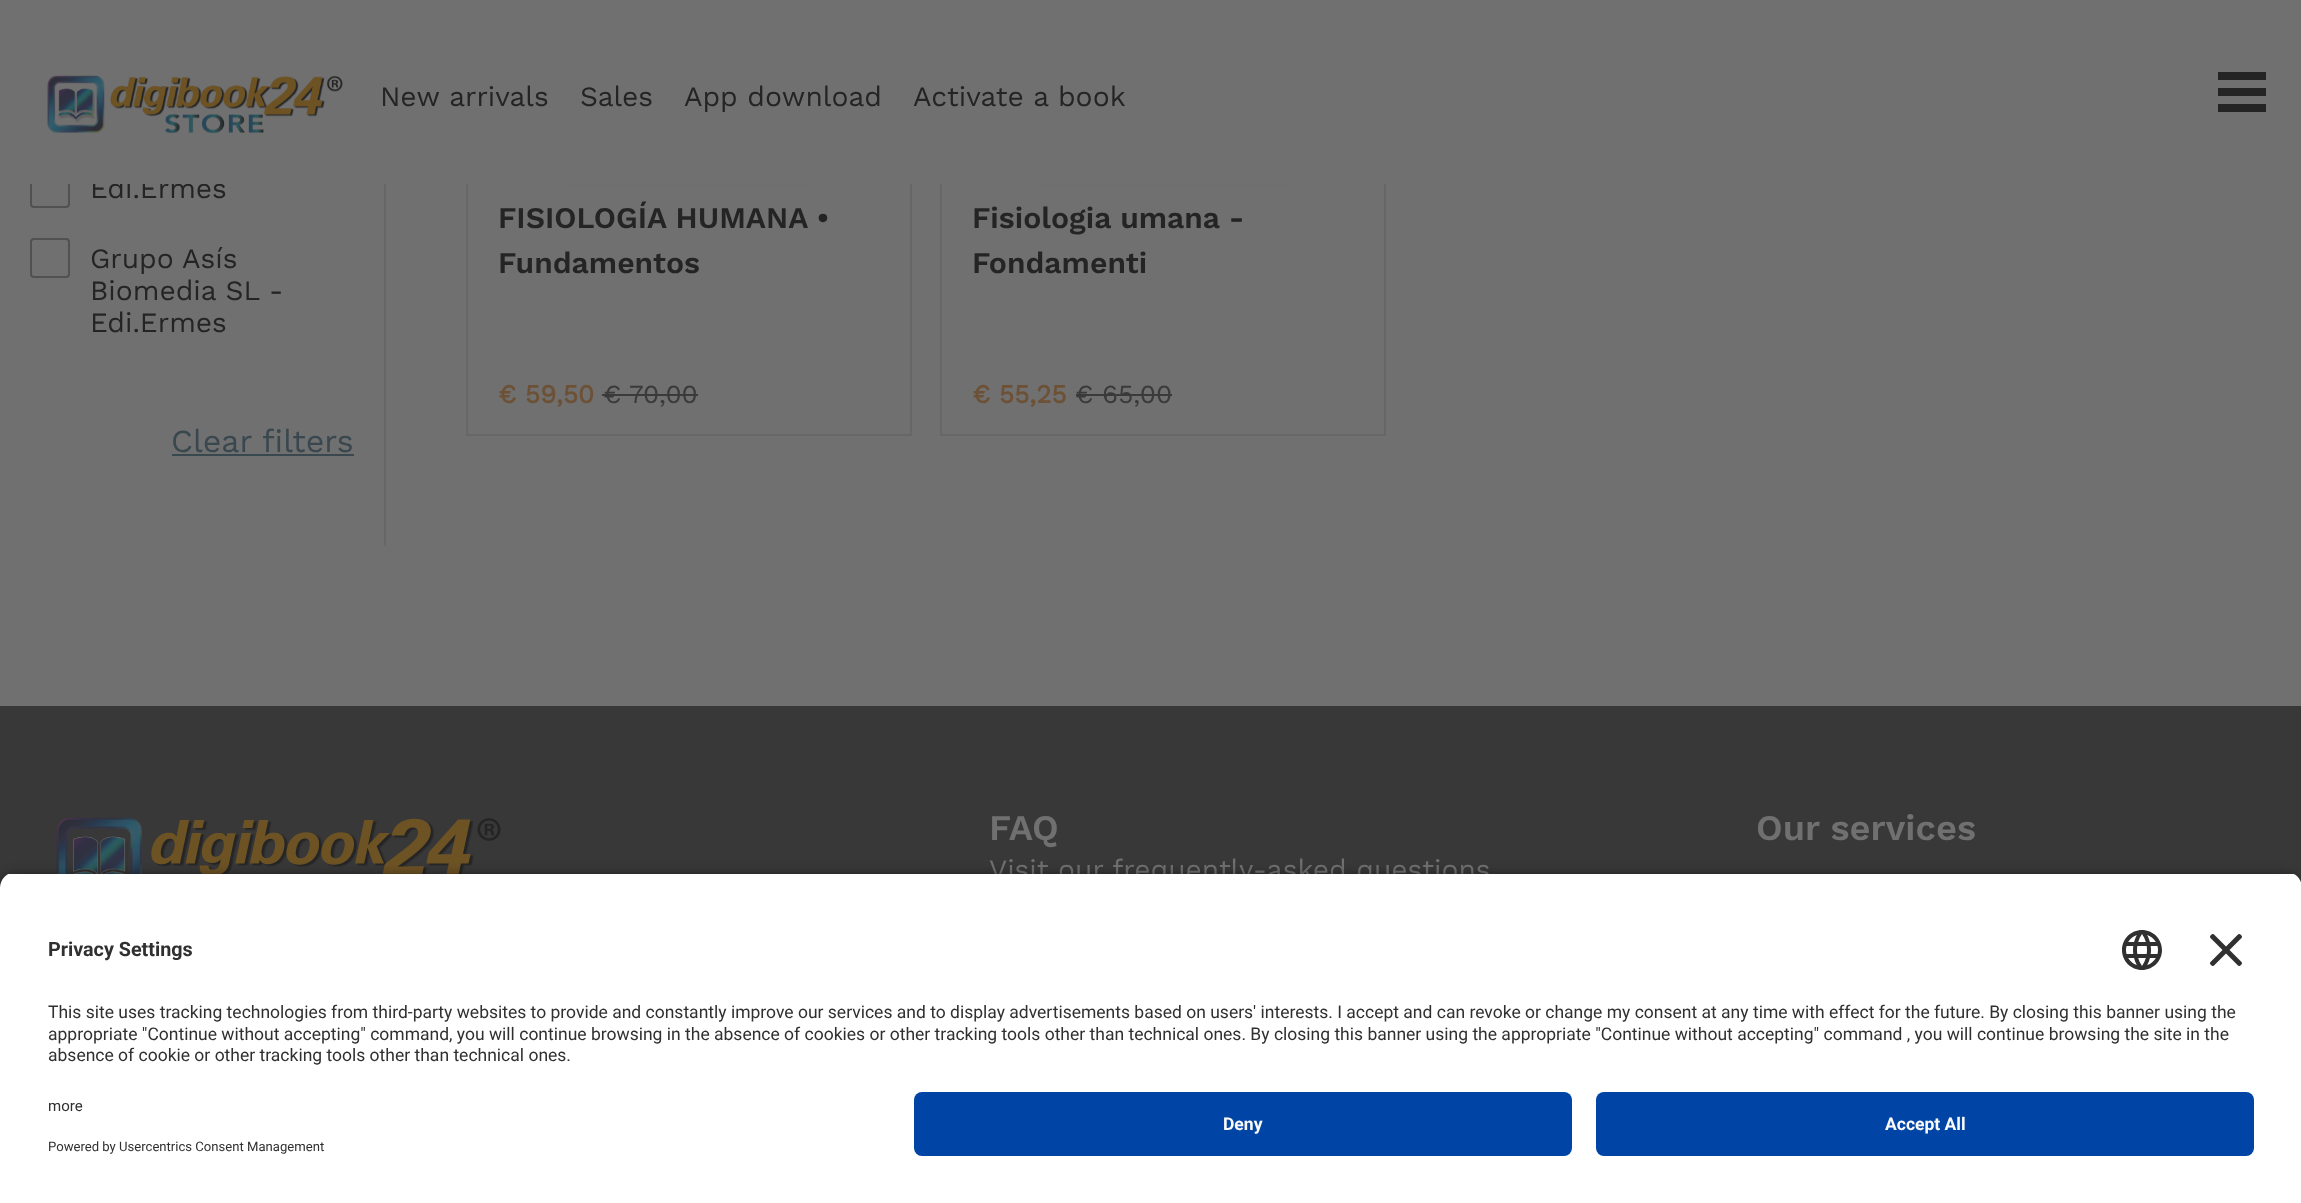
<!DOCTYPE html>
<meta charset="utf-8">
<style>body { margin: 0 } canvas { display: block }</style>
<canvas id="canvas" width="2301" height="1203"></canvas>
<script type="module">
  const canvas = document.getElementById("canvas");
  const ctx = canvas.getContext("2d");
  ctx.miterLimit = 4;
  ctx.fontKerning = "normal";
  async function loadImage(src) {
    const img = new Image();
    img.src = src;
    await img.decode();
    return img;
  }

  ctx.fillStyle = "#383838";
  ctx.fillRect(0, 0, 2301, 1203);
  ctx.fillStyle = "#707070";
  ctx.fillRect(0, 184, 2301, 522);
  ctx.beginPath();
  ctx.roundRect(31, 169, 38, 38, 3);
  ctx.strokeStyle = "#515151";
  ctx.lineWidth = 2;
  ctx.stroke();
  ctx.font = "28px Work Sans";
  ctx.fillStyle = "#242424";
  ctx.fillText("Edi.Ermes", 90, 198);
  ctx.strokeStyle = "#676767";
  ctx.strokeRect(467, -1, 444, 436);
  ctx.fillStyle = "#616161";
  ctx.filter = "blur(4px)";
  ctx.beginPath();
  ctx.rect(568, -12, 240, 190);
  ctx.fill();
  ctx.filter = "none";
  ctx.strokeRect(941, -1, 444, 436);
  ctx.filter = "blur(4px)";
  ctx.beginPath();
  ctx.rect(1042, -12, 240, 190);
  ctx.fill();
  ctx.filter = "none";
  ctx.fillStyle = "#707070";
  ctx.fillRect(0, 0, 2301, 184);
  ctx.drawImage(await loadImage("img1.png"), 47, 75, 296, 59);
  ctx.fillStyle = "#242424";
  ctx.fillText("New arrivals", 380, 106);
  ctx.fillText("Sales", 580, 106);
  ctx.fillText("App download", 684, 106);
  ctx.fillText("Activate a book", 913, 106);
  ctx.fillRect(2218, 72, 48, 8);
  ctx.fillRect(2218, 88, 48, 8);
  ctx.fillRect(2218, 104, 48, 8);
  ctx.beginPath();
  ctx.roundRect(31, 239, 38, 38, 3);
  ctx.strokeStyle = "#515151";
  ctx.stroke();
  ctx.fillText("Grupo Asís", 90, 268);
  ctx.fillText("Biomedia SL -", 90, 300);
  ctx.fillText("Edi.Ermes", 90, 332);
  ctx.font = "32px Work Sans";
  ctx.fillStyle = "#39474f";
  ctx.fillText("Clear filters", 171, 452);
  ctx.fillRect(172, 454, 182, 2);
  ctx.fillStyle = "#676767";
  ctx.fillRect(384, 184, 2, 362);
  ctx.font = "600 30px Work Sans";
  ctx.fillStyle = "#242424";
  ctx.fillText("FISIOLOGÍA HUMANA •", 498, 228);
  ctx.fillText("Fundamentos", 498, 273);
  ctx.font = "bold 26px Work Sans";
  ctx.fillStyle = "#6d5136";
  ctx.fillText("€ 59", 498, 403);
  ctx.fillText(",50", 556, 403);
  ctx.font = "26px Work Sans";
  ctx.fillStyle = "#3a3a3a";
  ctx.fillText("€ 70,00", 603, 403);
  ctx.fillRect(602, 394, 96, 2);
  ctx.font = "600 30px Work Sans";
  ctx.fillStyle = "#242424";
  ctx.fillText("Fisiologia umana -", 972, 228);
  ctx.fillText("Fondamenti", 972, 273);
  ctx.font = "bold 26px Work Sans";
  ctx.fillStyle = "#6d5136";
  ctx.fillText("€ 55,25", 972, 403);
  ctx.font = "26px Work Sans";
  ctx.fillStyle = "#3a3a3a";
  ctx.fillText("€ 65,00", 1075, 403);
  ctx.fillRect(1076, 394, 96, 2);
  ctx.drawImage(await loadImage("img2.png"), 56, 817, 445, 57);
  ctx.font = "600 36px Work Sans";
  ctx.fillStyle = "#707070";
  ctx.fillText("FAQ", 989, 840);
  ctx.font = "28px Work Sans";
  ctx.fillText("Visit our frequently-asked questions", 989, 879);
  ctx.font = "600 36px Work Sans";
  ctx.fillText("Our services", 1756, 840);
  ctx.fillStyle = "rgba(0, 0, 0, 0.8)";
  ctx.filter = "blur(7px)";
  ctx.beginPath();
  ctx.roundRect(0, 878, 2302, 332, 16);
  ctx.fill();
  ctx.filter = "none";
  ctx.save();
  ctx.beginPath();
  ctx.moveTo(16, 872);
  ctx.lineTo(2286, 872);
  ctx.bezierCurveTo(2295, 872, 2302, 879, 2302, 888);
  ctx.lineTo(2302, 1076);
  ctx.lineTo(0, 1076);
  ctx.lineTo(0, 888);
  ctx.bezierCurveTo(0, 879, 7, 872, 16, 872);
  ctx.closePath();
  ctx.clip();
  ctx.fillStyle = "#ffffff";
  ctx.fillRect(0, 874, 2301, 202);
  ctx.restore();
  ctx.font = "bold 19.75px Roboto";
  ctx.fillStyle = "#303030";
  ctx.fillText("Privacy Settings", 48, 956);
  ctx.drawImage(await loadImage("img3.png"), 2122, 930, 40, 40);
  ctx.drawImage(await loadImage("img4.png"), 2210, 934, 32, 32);
  ctx.font = "17.5px Roboto";
  ctx.fillText("This site uses tracking technologies from third-party websites to provide and constantly improve our services and to display advertisements based on users' interests. I accept and can revoke or change my consent at any time with effect for the future. By closing this banner using the", 48, 1018);
  ctx.fillText("appropriate \"Continue without accepting\" command, you will continue browsing in the absence of cookies or other tracking tools other than technical ones. By closing this banner using the appropriate \"Continue without accepting\" command , you will continue browsing the site in the", 48, 1040);
  ctx.fillText("absence of cookie or other tracking tools other than technical ones.", 48, 1061);
  ctx.fillStyle = "#ffffff";
  ctx.fillRect(0, 1076, 2301, 127);
  ctx.font = "15px Roboto";
  ctx.fillStyle = "#303030";
  ctx.fillText("more", 48, 1111);
  ctx.font = "13.1px Roboto";
  ctx.fillText("Powered by Usercentrics Consent Management", 48, 1151);
  ctx.fillStyle = "#0045a5";
  ctx.beginPath();
  ctx.roundRect(914, 1092, 658, 64, 8);
  ctx.fill();
  ctx.font = "bold 17.5px Roboto";
  ctx.fillStyle = "#fafafa";
  ctx.fillText("Deny", 1223, 1130);
  ctx.fillStyle = "#0045a5";
  ctx.beginPath();
  ctx.roundRect(1596, 1092, 658, 64, 8);
  ctx.fill();
  ctx.fillStyle = "#fafafa";
  ctx.fillText("Accept All", 1885, 1130);
</script>
